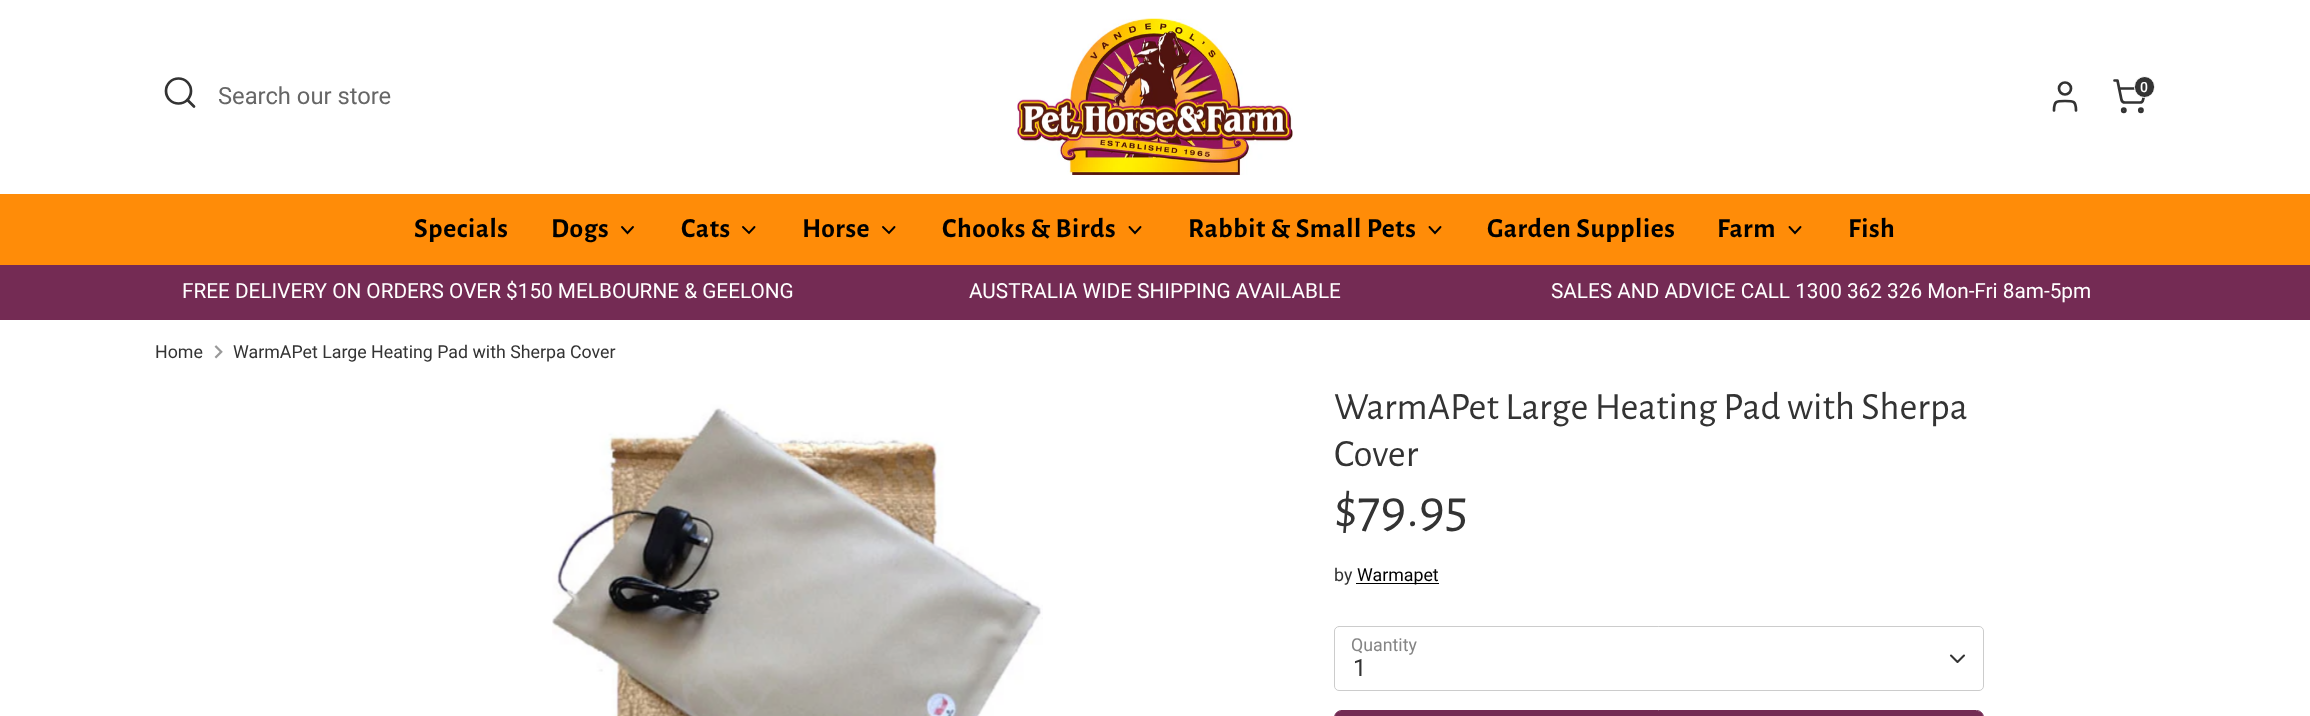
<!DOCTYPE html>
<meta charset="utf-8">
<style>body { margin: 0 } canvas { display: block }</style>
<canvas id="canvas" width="2310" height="716"></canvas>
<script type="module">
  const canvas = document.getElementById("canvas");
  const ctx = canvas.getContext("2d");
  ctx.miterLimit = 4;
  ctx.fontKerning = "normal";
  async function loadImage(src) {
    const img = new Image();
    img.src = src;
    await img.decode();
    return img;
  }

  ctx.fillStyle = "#ffffff";
  ctx.fillRect(0, 0, 2310, 716);
  ctx.beginPath();
  ctx.arc(178.5, 91, 12.5, 0, Math.PI * 2);
  ctx.strokeStyle = "#333333";
  ctx.lineWidth = 2.7;
  ctx.stroke();
  ctx.beginPath();
  ctx.moveTo(194, 106.5);
  ctx.lineTo(187.5, 100);
  ctx.lineCap = "round";
  ctx.lineJoin = "round";
  ctx.stroke();
  ctx.font = "23.75px Roboto";
  ctx.fillStyle = "#666666";
  ctx.fillText("Search our store", 218, 104);
  ctx.drawImage(await loadImage("img1.png"), 1017, 18, 276, 157);
  ctx.beginPath();
  ctx.moveTo(2076, 110.5);
  ctx.bezierCurveTo(2076, 101, 2073.5, 101, 2065, 101);
  ctx.bezierCurveTo(2056.5, 101, 2054, 101, 2054, 110.5);
  ctx.stroke();
  ctx.beginPath();
  ctx.arc(2065, 88.5, 6, 0, Math.PI * 2);
  ctx.stroke();
  ctx.beginPath();
  ctx.arc(2123.8, 110.3, 1.6, 0, Math.PI * 2);
  ctx.stroke();
  ctx.beginPath();
  ctx.arc(2140.9, 110.3, 1.6, 0, Math.PI * 2);
  ctx.stroke();
  ctx.beginPath();
  ctx.moveTo(2114.5, 80.5);
  ctx.lineTo(2117.5, 80.5);
  ctx.lineTo(2121.5, 100);
  ctx.bezierCurveTo(2122, 101.5, 2123.5, 102.5, 2125, 102.5);
  ctx.lineTo(2140, 102.5);
  ctx.bezierCurveTo(2141.5, 102.5, 2143, 101.5, 2143, 100);
  ctx.lineTo(2146, 88.5);
  ctx.lineTo(2119, 88.5);
  ctx.stroke();
  ctx.fillStyle = "#333333";
  ctx.beginPath();
  ctx.roundRect(2134.5, 76.5, 20, 21, 10);
  ctx.fill();
  ctx.strokeStyle = "#ffffff";
  ctx.lineWidth = 1;
  ctx.lineJoin = "miter";
  ctx.stroke();
  ctx.font = "500 14px Roboto";
  ctx.fillStyle = "#ffffff";
  ctx.fillText("0", 2140, 92);
  ctx.fillStyle = "#ff8c08";
  ctx.fillRect(0, 194, 2310, 71);
  ctx.letterSpacing = "0.6px";
  ctx.font = "bold 27.5px Alegreya Sans";
  ctx.fillStyle = "#000000";
  ctx.fillText("Specials", 414, 237);
  ctx.fillText("Dogs", 551, 237);
  ctx.beginPath();
  ctx.moveTo(622, 227);
  ctx.lineTo(627.5, 233);
  ctx.lineTo(633, 227);
  ctx.strokeStyle = "#000000";
  ctx.lineWidth = 1.9;
  ctx.stroke();
  ctx.fillText("Cats", 681, 237);
  ctx.beginPath();
  ctx.moveTo(743, 227);
  ctx.lineTo(749, 233);
  ctx.lineTo(754.5, 227);
  ctx.stroke();
  ctx.fillText("Horse", 802, 237);
  ctx.beginPath();
  ctx.moveTo(883, 227);
  ctx.lineTo(889, 233);
  ctx.lineTo(894.5, 227);
  ctx.stroke();
  ctx.fillText("Chooks & Birds", 942, 237);
  ctx.beginPath();
  ctx.moveTo(1129.5, 227);
  ctx.lineTo(1135, 233);
  ctx.lineTo(1140.5, 227);
  ctx.stroke();
  ctx.fillText("Rabbit & Small Pets", 1188, 237);
  ctx.beginPath();
  ctx.moveTo(1429.5, 227);
  ctx.lineTo(1435, 233);
  ctx.lineTo(1440.5, 227);
  ctx.stroke();
  ctx.fillText("Garden Supplies", 1487, 237);
  ctx.fillText("Farm", 1717, 237);
  ctx.beginPath();
  ctx.moveTo(1789.5, 227);
  ctx.lineTo(1795, 233);
  ctx.lineTo(1800.5, 227);
  ctx.stroke();
  ctx.fillText("Fish", 1848, 237);
  ctx.fillStyle = "#742b54";
  ctx.fillRect(0, 265, 2310, 55);
  ctx.letterSpacing = "0px";
  ctx.font = "20.75px Roboto";
  ctx.fillStyle = "#ffffff";
  ctx.fillText("FREE DELIVERY ON ORDERS OVER $150 MELBOURNE & GEELONG", 182, 298);
  ctx.fillText("AUSTRALIA WIDE SHIPPING AVAILABLE", 969, 298);
  ctx.fillText("SALES AND ADVICE CALL 1300 362 326 Mon-Fri 8am-5pm", 1551, 298);
  ctx.font = "17.8px Roboto";
  ctx.fillStyle = "#333333";
  ctx.fillText("Home", 155, 358);
  ctx.drawImage(await loadImage("img2.png"), 214, 345, 9, 14);
  ctx.fillText("WarmAPet Large Heating Pad with Sherpa Cover", 233, 358);
  ctx.drawImage(await loadImage("img3.png"), 552, 404, 491, 312);
  ctx.font = "38.8px Alegreya Sans";
  ctx.fillText("WarmAPet Large Heating Pad with Sherpa", 1334, 419);
  ctx.fillText("Cover", 1334, 466);
  ctx.font = "55px Alegreya Sans";
  ctx.fillText("$79.95", 1334, 526);
  ctx.font = "17.8px Roboto";
  ctx.fillText("by", 1334, 581);
  ctx.fillStyle = "#000000";
  ctx.fillRect(1356, 583, 83, 1);
  ctx.fillText("Warmapet", 1357, 581);
  ctx.fillStyle = "#858585";
  ctx.fillText("Quantity", 1351, 651);
  ctx.beginPath();
  ctx.roundRect(1334.5, 626.5, 649, 64, 4.5);
  ctx.strokeStyle = "#cccccc";
  ctx.lineWidth = 1;
  ctx.stroke();
  ctx.font = "23.75px Roboto";
  ctx.fillStyle = "#333333";
  ctx.fillText("1", 1353, 676);
  ctx.beginPath();
  ctx.moveTo(1951, 655.5);
  ctx.lineTo(1957.5, 662);
  ctx.lineTo(1964, 655.5);
  ctx.strokeStyle = "#333333";
  ctx.lineWidth = 2.1;
  ctx.lineJoin = "round";
  ctx.stroke();
  ctx.beginPath();
  ctx.roundRect(1334.5, 710.5, 649, 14, 7.5);
  ctx.strokeStyle = "#742b54";
  ctx.lineWidth = 1;
  ctx.lineJoin = "miter";
  ctx.stroke();
  ctx.fillStyle = "#742b54";
  ctx.beginPath();
  ctx.roundRect(1335, 711, 648, 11, 6);
  ctx.fill();
</script>
